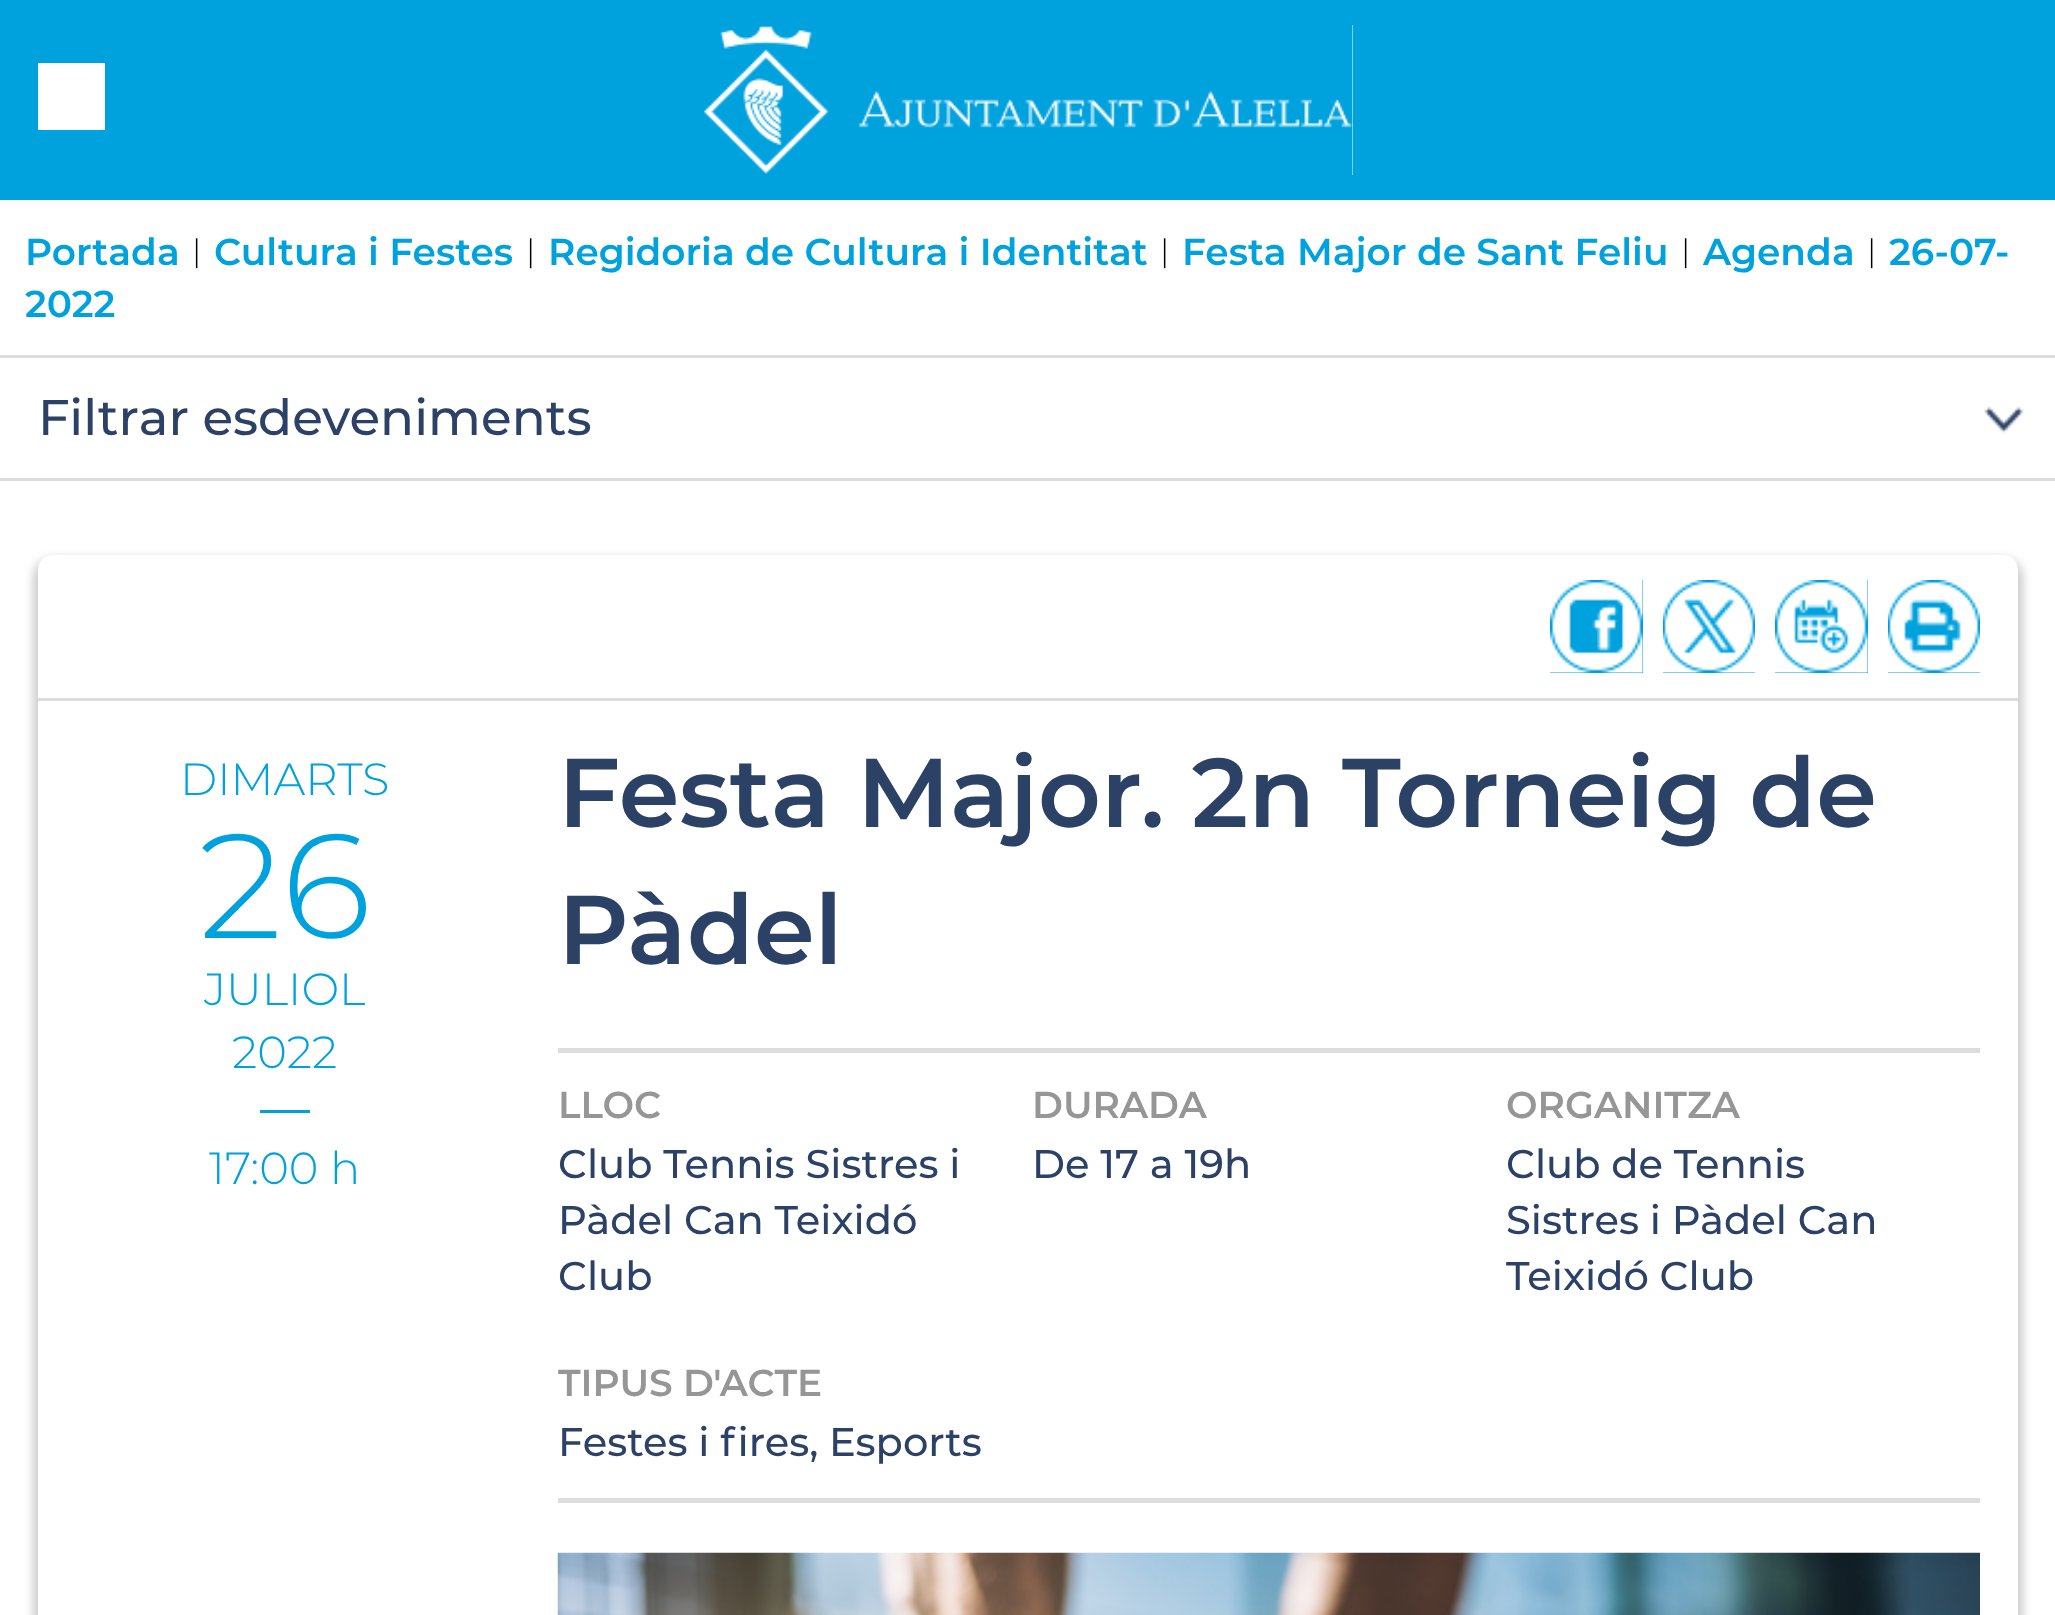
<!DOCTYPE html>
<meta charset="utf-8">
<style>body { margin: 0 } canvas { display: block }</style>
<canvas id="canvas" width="2055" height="1615"></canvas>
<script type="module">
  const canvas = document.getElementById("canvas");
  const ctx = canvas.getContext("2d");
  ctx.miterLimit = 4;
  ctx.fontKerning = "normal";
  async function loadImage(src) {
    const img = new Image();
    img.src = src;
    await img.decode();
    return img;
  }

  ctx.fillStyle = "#ffffff";
  ctx.fillRect(0, 0, 2055, 1615);
  ctx.fillStyle = "#00a2de";
  ctx.fillRect(0, 0, 2055, 200);
  ctx.fillStyle = "#ffffff";
  ctx.fillRect(38, 63, 67, 67);
  ctx.fillRect(704, 25, 649, 150);
  ctx.drawImage(await loadImage("img1.png"), 703, 25, 650, 150);
  ctx.fillStyle = "#dddddd";
  ctx.fillRect(0, 355, 2055, 3);
  ctx.font = "600 37.5px Montserrat";
  ctx.fillStyle = "#00a2de";
  ctx.fillText("Portada", 25, 265);
  ctx.font = "300 32px Montserrat";
  ctx.fillStyle = "#000000";
  ctx.fillText("|", 192, 262);
  ctx.font = "600 37.5px Montserrat";
  ctx.fillStyle = "#00a2de";
  ctx.fillText("Cultura i Festes", 214, 265);
  ctx.font = "300 32px Montserrat";
  ctx.fillStyle = "#000000";
  ctx.fillText("|", 526, 262);
  ctx.font = "600 37.5px Montserrat";
  ctx.fillStyle = "#00a2de";
  ctx.fillText("Regidoria de Cultura i Identitat", 548, 265);
  ctx.font = "300 32px Montserrat";
  ctx.fillStyle = "#000000";
  ctx.fillText("|", 1160, 262);
  ctx.font = "600 37.5px Montserrat";
  ctx.fillStyle = "#00a2de";
  ctx.fillText("Festa Major de Sant Feliu", 1182, 265);
  ctx.font = "300 32px Montserrat";
  ctx.fillStyle = "#000000";
  ctx.fillText("|", 1681, 262);
  ctx.font = "600 37.5px Montserrat";
  ctx.fillStyle = "#00a2de";
  ctx.fillText("Agenda", 1703, 265);
  ctx.font = "300 32px Montserrat";
  ctx.fillStyle = "#000000";
  ctx.fillText("|", 1867, 262);
  ctx.font = "600 37.5px Montserrat";
  ctx.fillStyle = "#00a2de";
  ctx.fillText("26-07-", 1889, 265);
  ctx.fillText("2022", 25, 317);
  ctx.fillStyle = "#dddddd";
  ctx.fillRect(0, 478, 2055, 3);
  ctx.font = "500 50px Montserrat";
  ctx.fillStyle = "#2b4266";
  ctx.fillText("Filtrar esdeveniments", 38, 435);
  ctx.drawImage(await loadImage("img2.png"), 1984, 406, 40, 28);
  ctx.save();
  ctx.beginPath();
  ctx.moveTo(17, 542);
  ctx.lineTo(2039, 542);
  ctx.lineTo(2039, 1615);
  ctx.lineTo(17, 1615);
  ctx.closePath();
  ctx.moveTo(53, 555);
  ctx.lineTo(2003, 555);
  ctx.bezierCurveTo(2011.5, 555, 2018, 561.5, 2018, 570);
  ctx.lineTo(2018, 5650);
  ctx.bezierCurveTo(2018, 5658.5, 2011.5, 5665, 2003, 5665);
  ctx.lineTo(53, 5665);
  ctx.bezierCurveTo(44.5, 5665, 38, 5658.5, 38, 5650);
  ctx.lineTo(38, 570);
  ctx.bezierCurveTo(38, 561.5, 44.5, 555, 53, 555);
  ctx.closePath();
  ctx.clip("evenodd");
  ctx.fillStyle = "#cccccc";
  ctx.filter = "blur(5px)";
  ctx.beginPath();
  ctx.roundRect(33, 558, 1990, 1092, 20);
  ctx.fill();
  ctx.filter = "none";
  ctx.restore();
  ctx.fillStyle = "#dddddd";
  ctx.fillRect(38, 698, 1980, 3);
  ctx.fillStyle = "#00a2de";
  ctx.fillRect(1550, 580, 93, 93);
  ctx.drawImage(await loadImage("img3.png"), 1550, 580, 93, 93);
  ctx.fillRect(1663, 580, 92, 93);
  ctx.drawImage(await loadImage("img4.png"), 1662, 580, 93, 93);
  ctx.fillRect(1775, 580, 93, 93);
  ctx.drawImage(await loadImage("img5.png"), 1775, 580, 93, 93);
  ctx.fillRect(1888, 580, 92, 93);
  ctx.drawImage(await loadImage("img6.png"), 1887, 580, 93, 93);
  ctx.font = "300 45px Montserrat";
  ctx.fillText("DIMARTS", 180, 795);
  ctx.font = "300 148px Montserrat";
  ctx.fillText("26", 199, 938);
  ctx.font = "300 45px Montserrat";
  ctx.fillText("JULIOL", 204, 1005);
  ctx.fillText("2022", 232, 1068);
  ctx.fillRect(260, 1110, 50, 3);
  ctx.fillText("17:00 h", 209, 1184);
  ctx.font = "600 97.5px Montserrat";
  ctx.fillStyle = "#2b4266";
  ctx.fillText("Festa Major. 2n Torneig de", 558, 827);
  ctx.fillText("Pàdel", 558, 964);
  ctx.fillStyle = "#dddddd";
  ctx.fillRect(558, 1048, 1422, 5);
  ctx.fillRect(558, 1498, 1422, 5);
  ctx.font = "600 37.5px Montserrat";
  ctx.fillStyle = "#969696";
  ctx.fillText("LLOC", 558, 1118);
  ctx.font = "500 40px Montserrat";
  ctx.fillStyle = "#2b4266";
  ctx.fillText("Club Tennis Sistres i", 558, 1178);
  ctx.fillText("Pàdel Can Teixidó", 558, 1234);
  ctx.fillText("Club", 558, 1290);
  ctx.font = "600 37.5px Montserrat";
  ctx.fillStyle = "#969696";
  ctx.fillText("DURADA", 1032, 1118);
  ctx.font = "500 40px Montserrat";
  ctx.fillStyle = "#2b4266";
  ctx.fillText("De 17 a 19h", 1032, 1178);
  ctx.font = "600 37.5px Montserrat";
  ctx.fillStyle = "#969696";
  ctx.fillText("ORGANITZA", 1506, 1118);
  ctx.font = "500 40px Montserrat";
  ctx.fillStyle = "#2b4266";
  ctx.fillText("Club de Tennis", 1506, 1178);
  ctx.fillText("Sistres i Pàdel Can", 1506, 1234);
  ctx.fillText("Teixidó Club", 1506, 1290);
  ctx.save();
  ctx.beginPath();
  ctx.rect(558, 1053, 1422, 445);
  ctx.clip();
  ctx.font = "600 37.5px Montserrat";
  ctx.fillStyle = "#969696";
  ctx.fillText("TIPUS D'ACTE", 558, 1396);
  ctx.restore();
  ctx.fillText("Festes i fires, Esports", 558, 1456);
  ctx.drawImage(await loadImage("img7.png"), 557, 1552, 1423, 63);
</script>
